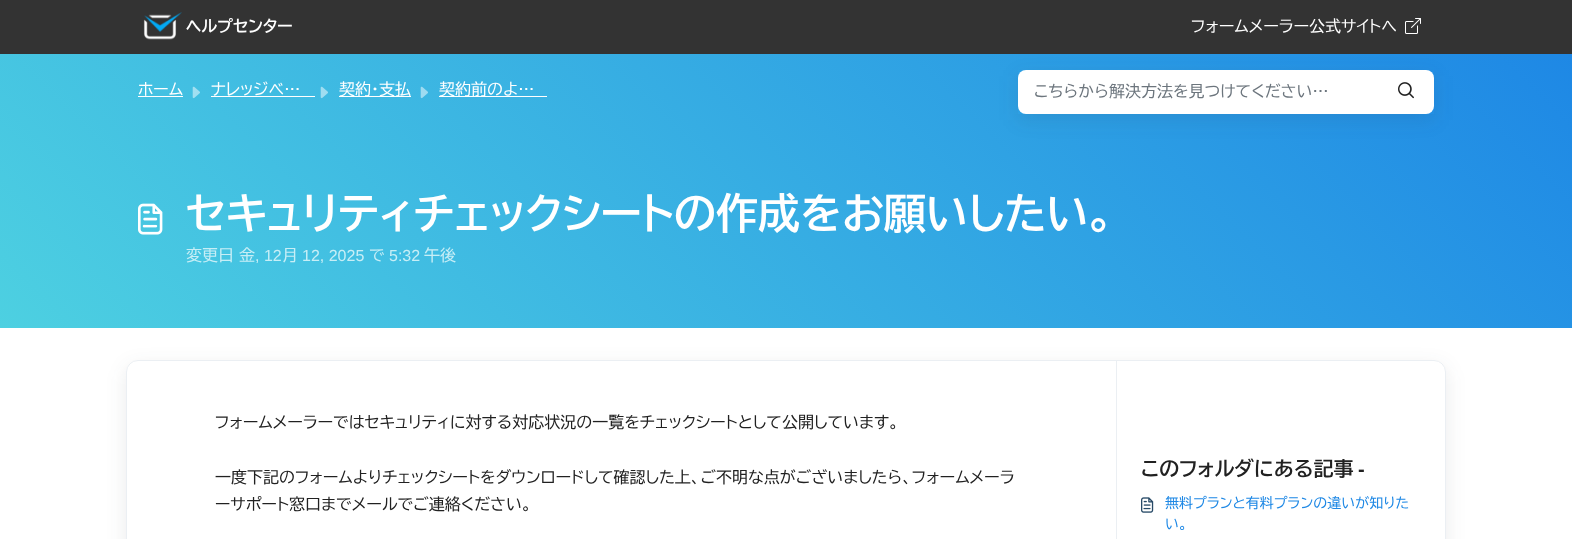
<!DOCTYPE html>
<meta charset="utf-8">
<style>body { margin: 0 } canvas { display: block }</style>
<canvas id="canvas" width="1572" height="539"></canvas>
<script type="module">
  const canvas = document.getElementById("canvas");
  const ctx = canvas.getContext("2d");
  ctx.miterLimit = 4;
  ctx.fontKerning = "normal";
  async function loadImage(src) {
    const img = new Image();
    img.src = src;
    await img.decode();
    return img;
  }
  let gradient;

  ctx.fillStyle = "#ffffff";
  ctx.fillRect(0, 0, 1572, 539);
  ctx.fillStyle = "#333333";
  ctx.fillRect(0, 0, 1572, 54);
  ctx.drawImage(await loadImage("img1.png"), 143, 12, 39, 28);
  ctx.font = "bold 16px BIZ UDPGothic";
  ctx.fillStyle = "#ffffff";
  ctx.fillText("ヘルプセンター", 186, 32);
  ctx.font = "16px BIZ UDPGothic";
  ctx.fillText("フォームメーラー公式サイトへ", 1191, 32);
  ctx.drawImage(await loadImage("img2.png"), 1405, 18, 16, 16);
  gradient = ctx.createLinearGradient(325, 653, 1248, -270);
  gradient.addColorStop(0, "#4dd0e1");
  gradient.addColorStop(1, "#1e88e5");
  ctx.fillStyle = gradient;
  ctx.fillRect(0, 54, 1572, 274);
  ctx.fillStyle = "#ffffff";
  ctx.fillText("ホーム", 138, 95);
  ctx.fillRect(138, 96, 45, 1);
  ctx.drawImage(await loadImage("img3.png"), 192, 86, 8, 13);
  ctx.fillText("ナレッジベ…", 211, 95);
  ctx.fillRect(211, 96, 104, 1);
  ctx.drawImage(await loadImage("img4.png"), 320, 86, 8, 13);
  ctx.fillRect(339, 96, 72, 1);
  ctx.fillText("契約・支払", 339, 95);
  ctx.drawImage(await loadImage("img5.png"), 420, 86, 8, 13);
  ctx.fillRect(439, 96, 108, 1);
  ctx.fillText("契約前のよ…", 439, 95);
  ctx.save();
  ctx.beginPath();
  ctx.moveTo(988, 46);
  ctx.lineTo(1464, 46);
  ctx.lineTo(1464, 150);
  ctx.lineTo(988, 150);
  ctx.closePath();
  ctx.moveTo(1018, 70);
  ctx.lineTo(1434, 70);
  ctx.lineTo(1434, 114);
  ctx.lineTo(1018, 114);
  ctx.closePath();
  ctx.clip("evenodd");
  ctx.fillStyle = "rgba(39, 49, 58, 0.1)";
  ctx.filter = "blur(9.5px)";
  ctx.beginPath();
  ctx.rect(1018, 76, 416, 44);
  ctx.fill();
  ctx.filter = "none";
  ctx.restore();
  ctx.beginPath();
  ctx.roundRect(1018, 70, 361, 44, [8, 0, 0, 8]);
  ctx.fill();
  ctx.fillStyle = "#6c757d";
  ctx.fillText("こちらから解決方法を見つけてください…", 1034, 97);
  ctx.fillStyle = "#ffffff";
  ctx.beginPath();
  ctx.roundRect(1378, 70, 56, 44, [0, 8, 8, 0]);
  ctx.fill();
  ctx.drawImage(await loadImage("img6.png"), 1398, 82, 16, 17);
  ctx.drawImage(await loadImage("img7.png"), 138, 203, 25, 32);
  ctx.font = "bold 42px BIZ UDPGothic";
  ctx.fillText("セキュリティチェックシートの作成をお願いしたい。", 186, 229);
  ctx.font = "16px BIZ UDPGothic";
  ctx.fillStyle = "#c7eef6";
  ctx.fillText("変更日", 186, 261);
  ctx.fillText("金", 239, 261);
  ctx.font = "16px Liberation Sans";
  ctx.fillText(", 12", 255, 261);
  ctx.font = "16px BIZ UDPGothic";
  ctx.fillText("月", 282, 261);
  ctx.font = "16px Liberation Sans";
  ctx.fillText("12, 2025", 302, 261);
  ctx.font = "16px BIZ UDPGothic";
  ctx.fillText("で", 369, 261);
  ctx.font = "16px Liberation Sans";
  ctx.fillText("5:32", 389, 261);
  ctx.font = "16px BIZ UDPGothic";
  ctx.fillText("午後", 424, 261);
  ctx.save();
  ctx.beginPath();
  ctx.moveTo(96, 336);
  ctx.lineTo(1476, 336);
  ctx.lineTo(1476, 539);
  ctx.lineTo(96, 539);
  ctx.closePath();
  ctx.moveTo(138, 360);
  ctx.lineTo(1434, 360);
  ctx.bezierCurveTo(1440.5, 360, 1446, 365.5, 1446, 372);
  ctx.lineTo(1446, 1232);
  ctx.bezierCurveTo(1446, 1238.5, 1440.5, 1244, 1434, 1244);
  ctx.lineTo(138, 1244);
  ctx.bezierCurveTo(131.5, 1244, 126, 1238.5, 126, 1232);
  ctx.lineTo(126, 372);
  ctx.bezierCurveTo(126, 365.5, 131.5, 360, 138, 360);
  ctx.closePath();
  ctx.clip("evenodd");
  ctx.fillStyle = "rgba(39, 49, 58, 0.1)";
  ctx.filter = "blur(9.5px)";
  ctx.beginPath();
  ctx.roundRect(126, 366, 1320, 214, 12);
  ctx.fill();
  ctx.filter = "none";
  ctx.restore();
  ctx.beginPath();
  ctx.roundRect(126.5, 360.5, 1319, 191, 11.5);
  ctx.strokeStyle = "#ebeff3";
  ctx.stroke();
  ctx.fillStyle = "#212121";
  ctx.fillText("フォームメーラーではセキュリティに対する対応状況の一覧をチェックシートとして公開しています。", 215, 428);
  ctx.fillText("一度下記のフォームよりチェックシートをダウンロードして確認した上、ご不明な点がございましたら、フォームメーラ", 215, 483);
  ctx.fillText("ーサポート窓口までメールでご連絡ください。", 215, 510);
  ctx.fillStyle = "#ebeff3";
  ctx.fillRect(1116, 361, 1, 178);
  ctx.font = "bold 20px BIZ UDPGothic";
  ctx.fillStyle = "#212121";
  ctx.fillText("このフォルダにある記事", 1141, 476);
  ctx.font = "bold 20px Liberation Sans";
  ctx.fillText("-", 1358, 476);
  ctx.drawImage(await loadImage("img8.png"), 1141, 497, 13, 16);
  ctx.font = "14px BIZ UDPGothic";
  ctx.fillStyle = "#1e88e5";
  ctx.fillText("無料プランと有料プランの違いが知りた", 1165, 508);
  ctx.fillText("い。", 1165, 529);
</script>
